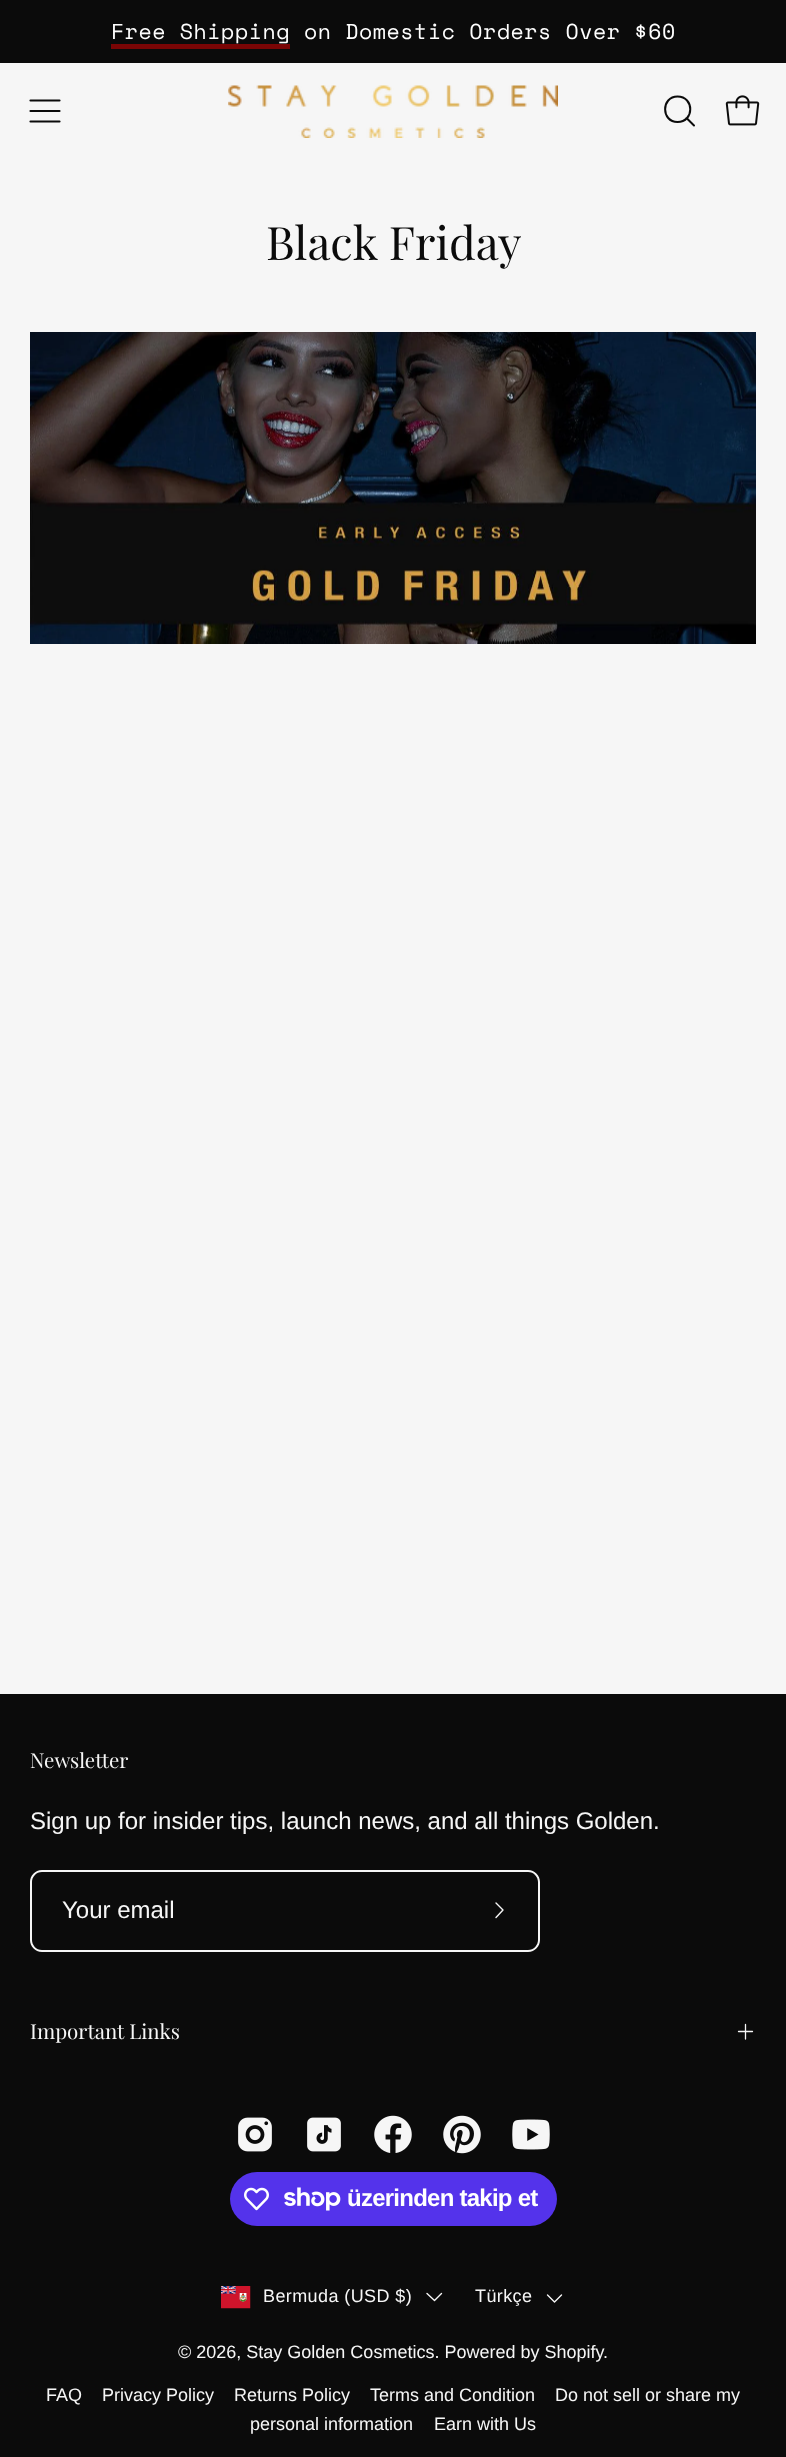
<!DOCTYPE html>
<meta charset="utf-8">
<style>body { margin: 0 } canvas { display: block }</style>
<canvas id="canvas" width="786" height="2457"></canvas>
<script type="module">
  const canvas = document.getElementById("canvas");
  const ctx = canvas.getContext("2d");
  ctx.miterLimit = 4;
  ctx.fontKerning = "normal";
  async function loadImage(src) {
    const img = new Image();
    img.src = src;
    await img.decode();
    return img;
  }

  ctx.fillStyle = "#f6f6f6";
  ctx.fillRect(0, 0, 786, 2457);
  ctx.fillStyle = "#0b0b0b";
  ctx.fillRect(0, 0, 786, 63);
  ctx.letterSpacing = "0.55px";
  ctx.font = "21.6px Space Mono";
  ctx.fillStyle = "#ffffff";
  ctx.fillText("Free Shipping", 111, 39);
  ctx.fillStyle = "#7a0505";
  ctx.fillRect(111, 44, 179, 5);
  ctx.fillStyle = "#ffffff";
  ctx.fillText("on Domestic Orders Over $60", 304, 39);
  ctx.beginPath();
  ctx.moveTo(30.5, 111);
  ctx.lineTo(59.5, 111);
  ctx.moveTo(30.5, 100.5);
  ctx.lineTo(59.5, 100.5);
  ctx.moveTo(30.5, 121.5);
  ctx.lineTo(59.5, 121.5);
  ctx.strokeStyle = "#0b0b0b";
  ctx.lineWidth = 2.2;
  ctx.lineCap = "round";
  ctx.lineJoin = "round";
  ctx.stroke();
  ctx.drawImage(await loadImage("img1.png"), 228, 85, 330, 53);
  ctx.beginPath();
  ctx.moveTo(677.5, 122);
  ctx.bezierCurveTo(694.5, 122, 694.5, 96.5, 677.5, 96.5);
  ctx.bezierCurveTo(661, 96.5, 661, 122, 677.5, 122);
  ctx.closePath();
  ctx.moveTo(686.5, 118);
  ctx.lineTo(694, 125.5);
  ctx.lineWidth = 2;
  ctx.stroke();
  ctx.drawImage(await loadImage("img2.png"), 725, 95, 35, 31);
  ctx.letterSpacing = "0px";
  ctx.font = "46px Playfair Display";
  ctx.fillStyle = "#0b0b0b";
  ctx.fillText("Black Friday", 266, 260);
  ctx.drawImage(await loadImage("img3.png"), 30, 332, 726, 312);
  ctx.fillRect(0, 1694, 786, 763);
  ctx.font = "20.5px Playfair Display";
  ctx.fillStyle = "#f6f6f6";
  ctx.fillText("Newsletter", 30, 1768);
  ctx.font = "24px Liberation Sans";
  ctx.fillText("Sign up for insider tips, launch news, and all things Golden.", 30, 1829);
  ctx.beginPath();
  ctx.moveTo(42, 1870);
  ctx.lineTo(459, 1870);
  ctx.lineTo(459, 1952);
  ctx.lineTo(42, 1952);
  ctx.bezierCurveTo(35, 1952, 30, 1946, 30, 1940);
  ctx.lineTo(30, 1882);
  ctx.bezierCurveTo(30, 1876, 35, 1870, 42, 1870);
  ctx.closePath();
  ctx.moveTo(42, 1872);
  ctx.lineTo(459, 1872);
  ctx.lineTo(459, 1950);
  ctx.lineTo(42, 1950);
  ctx.bezierCurveTo(36, 1950, 32, 1945, 32, 1940);
  ctx.lineTo(32, 1882);
  ctx.bezierCurveTo(32, 1877, 36, 1872, 42, 1872);
  ctx.closePath();
  ctx.fill("evenodd");
  ctx.fillText("Your email", 62, 1918);
  ctx.beginPath();
  ctx.moveTo(459, 1870);
  ctx.lineTo(528, 1870);
  ctx.bezierCurveTo(535, 1870, 540, 1876, 540, 1882);
  ctx.lineTo(540, 1940);
  ctx.bezierCurveTo(540, 1946, 535, 1952, 528, 1952);
  ctx.lineTo(459, 1952);
  ctx.closePath();
  ctx.moveTo(459, 1872);
  ctx.lineTo(528, 1872);
  ctx.bezierCurveTo(534, 1872, 538, 1877, 538, 1882);
  ctx.lineTo(538, 1940);
  ctx.bezierCurveTo(538, 1945, 534, 1950, 528, 1950);
  ctx.lineTo(459, 1950);
  ctx.closePath();
  ctx.fill("evenodd");
  ctx.beginPath();
  ctx.moveTo(496, 1903);
  ctx.lineTo(503, 1910);
  ctx.lineTo(496, 1917.5);
  ctx.strokeStyle = "#f6f6f6";
  ctx.lineWidth = 1.4;
  ctx.stroke();
  ctx.font = "20.5px Playfair Display";
  ctx.fillText("Important Links", 30, 2039);
  ctx.beginPath();
  ctx.moveTo(738.5, 2031.5);
  ctx.lineTo(752.5, 2031.5);
  ctx.moveTo(745.5, 2024.5);
  ctx.lineTo(745.5, 2039);
  ctx.lineWidth = 1.3;
  ctx.stroke();
  ctx.drawImage(await loadImage("img4.png"), 238, 2117, 34, 35);
  ctx.drawImage(await loadImage("img5.png"), 307, 2117, 34, 35);
  ctx.drawImage(await loadImage("img6.png"), 374, 2115, 38, 38);
  ctx.drawImage(await loadImage("img7.png"), 443, 2115, 38, 39);
  ctx.drawImage(await loadImage("img8.png"), 512, 2119, 38, 31);
  ctx.fillStyle = "#5433eb";
  ctx.beginPath();
  ctx.roundRect(230, 2172, 327, 54, 27);
  ctx.fill();
  ctx.drawImage(await loadImage("img9.png"), 244, 2187, 25, 24);
  ctx.drawImage(await loadImage("img10.png"), 284, 2187, 57, 24);
  ctx.letterSpacing = "-0.75px";
  ctx.font = "bold 24px Liberation Sans";
  ctx.fillStyle = "#ffffff";
  ctx.fillText("üzerinden takip et", 347, 2206);
  ctx.drawImage(await loadImage("img11.png"), 221, 2286, 30, 23);
  ctx.letterSpacing = "0.4px";
  ctx.font = "18px Liberation Sans";
  ctx.fillStyle = "#f6f6f6";
  ctx.fillText("Bermuda (USD $)", 263, 2302);
  ctx.beginPath();
  ctx.moveTo(441.5, 2293.5);
  ctx.lineTo(434.5, 2300.5);
  ctx.lineTo(427, 2293.5);
  ctx.lineWidth = 1.4;
  ctx.stroke();
  ctx.fillText("Türkçe", 475, 2302);
  ctx.beginPath();
  ctx.moveTo(561.5, 2295);
  ctx.lineTo(554.5, 2302);
  ctx.lineTo(547.5, 2295);
  ctx.stroke();
  ctx.letterSpacing = "0px";
  ctx.fillText("© 2026, Stay Golden Cosmetics. Powered by Shopify", 178, 2358);
  ctx.fillText(".", 603, 2358);
  ctx.fillText("FAQ", 46, 2401);
  ctx.fillText("Privacy Policy", 102, 2401);
  ctx.fillText("Returns Policy", 234, 2401);
  ctx.fillText("Terms and Condition", 370, 2401);
  ctx.fillText("Do not sell or share my", 555, 2401);
  ctx.fillText("personal information", 250, 2430);
  ctx.fillText("Earn with Us", 434, 2430);
</script>
